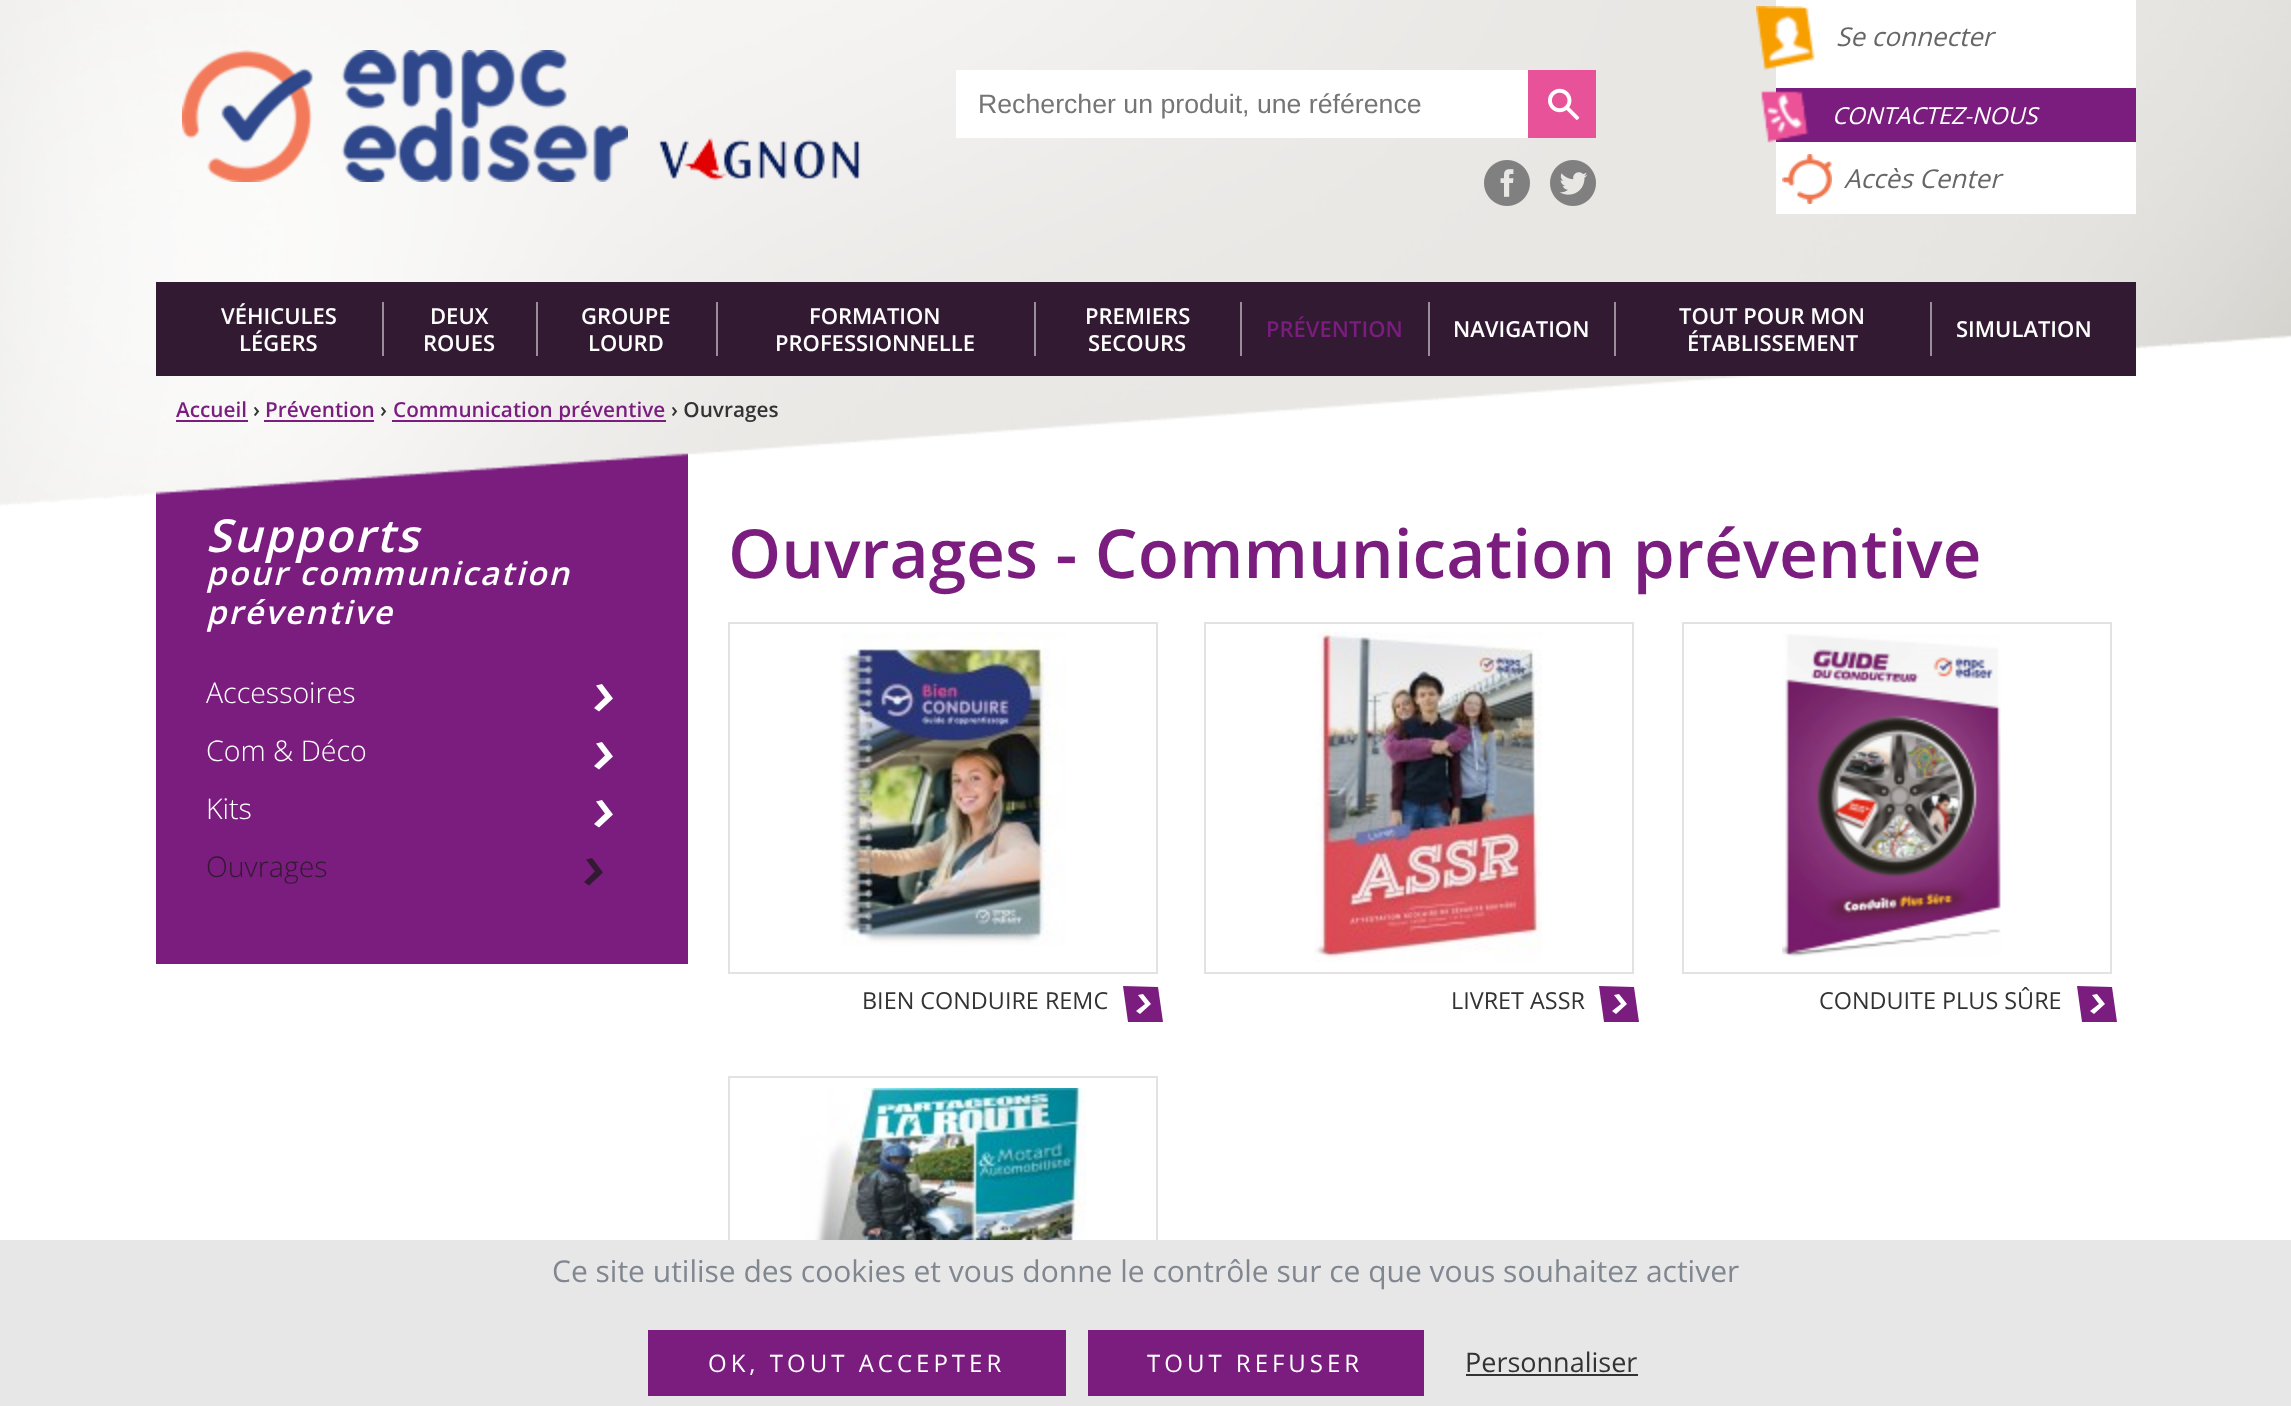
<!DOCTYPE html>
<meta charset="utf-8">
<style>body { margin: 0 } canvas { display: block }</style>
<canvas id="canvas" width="2291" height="1406"></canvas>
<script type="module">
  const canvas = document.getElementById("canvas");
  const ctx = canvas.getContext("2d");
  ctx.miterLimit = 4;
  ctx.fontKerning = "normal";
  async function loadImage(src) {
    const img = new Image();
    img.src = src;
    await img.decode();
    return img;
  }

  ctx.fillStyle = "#ffffff";
  ctx.fillRect(0, 0, 2291, 1406);
  ctx.fillStyle = "#7a1d7f";
  ctx.fillRect(156, 453, 532, 511);
  ctx.drawImage(await loadImage("img1.png"), 0, 0, 2291, 506);
  ctx.drawImage(await loadImage("img2.png"), 182, 50, 446, 132);
  ctx.drawImage(await loadImage("img3.png"), 658, 137, 203, 44);
  ctx.fillStyle = "#ffffff";
  ctx.fillRect(956, 70, 572, 68);
  ctx.font = "26.7px Liberation Sans";
  ctx.fillStyle = "#757575";
  ctx.fillText("Rechercher un produit, une référence", 978, 113);
  ctx.fillStyle = "#e75298";
  ctx.fillRect(1528, 70, 68, 68);
  ctx.drawImage(await loadImage("img4.png"), 1548, 88, 32, 32);
  ctx.fillStyle = "#ffffff";
  ctx.fillRect(1776, 0, 360, 214);
  ctx.drawImage(await loadImage("img5.png"), 1756, 6, 59, 64);
  ctx.font = "italic 26px Open Sans";
  ctx.fillStyle = "#666666";
  ctx.fillText("Se connecter", 1836, 46);
  ctx.fillStyle = "#7b1d7e";
  ctx.fillRect(1776, 88, 360, 54);
  ctx.drawImage(await loadImage("img6.png"), 1760, 90, 49, 53);
  ctx.font = "italic 23.4px Open Sans";
  ctx.fillStyle = "#ffffff";
  ctx.fillText("CONTACTEZ-NOUS", 1832, 124);
  ctx.drawImage(await loadImage("img7.png"), 1782, 154, 50, 50);
  ctx.font = "italic 26px Open Sans";
  ctx.fillStyle = "#666666";
  ctx.fillText("Accès Center", 1844, 188);
  ctx.drawImage(await loadImage("img8.png"), 1484, 160, 46, 46);
  ctx.drawImage(await loadImage("img9.png"), 1550, 160, 46, 46);
  ctx.fillStyle = "#321a32";
  ctx.fillRect(156, 282, 1980, 94);
  ctx.fillStyle = "#998d99";
  ctx.fillRect(382, 302, 2, 54);
  ctx.font = "600 22px Open Sans";
  ctx.fillStyle = "#ffffff";
  ctx.fillText("VÉHICULES", 221, 324);
  ctx.fillText("LÉGERS", 239, 351);
  ctx.fillStyle = "#998d99";
  ctx.fillRect(536, 302, 2, 54);
  ctx.fillStyle = "#ffffff";
  ctx.fillText("DEUX", 430, 324);
  ctx.fillText("ROUES", 423, 351);
  ctx.fillStyle = "#998d99";
  ctx.fillRect(716, 302, 2, 54);
  ctx.fillStyle = "#ffffff";
  ctx.fillText("GROUPE", 581, 324);
  ctx.fillText("LOURD", 588, 351);
  ctx.fillStyle = "#998d99";
  ctx.fillRect(1034, 302, 2, 54);
  ctx.fillStyle = "#ffffff";
  ctx.fillText("FORMATION", 809, 324);
  ctx.fillText("PROFESSIONNELLE", 775, 351);
  ctx.fillStyle = "#998d99";
  ctx.fillRect(1240, 302, 2, 54);
  ctx.fillStyle = "#ffffff";
  ctx.fillText("PREMIERS", 1085, 324);
  ctx.fillText("SECOURS", 1088, 351);
  ctx.fillStyle = "#998d99";
  ctx.fillRect(1428, 302, 2, 54);
  ctx.fillStyle = "#7a1d7f";
  ctx.fillText("PRÉVENTION", 1266, 337);
  ctx.fillStyle = "#998d99";
  ctx.fillRect(1614, 302, 2, 54);
  ctx.fillStyle = "#ffffff";
  ctx.fillText("NAVIGATION", 1453, 337);
  ctx.fillStyle = "#998d99";
  ctx.fillRect(1930, 302, 2, 54);
  ctx.fillStyle = "#ffffff";
  ctx.fillText("TOUT POUR MON", 1679, 324);
  ctx.fillText("ÉTABLISSEMENT", 1687, 351);
  ctx.fillText("SIMULATION", 1956, 337);
  ctx.font = "600 20.75px Open Sans";
  ctx.fillStyle = "#7a1d7f";
  ctx.fillText("Accueil", 176, 417);
  ctx.fillRect(176, 420, 72, 2);
  ctx.fillStyle = "#333333";
  ctx.fillText("›", 253, 417);
  ctx.fillStyle = "#7a1d7f";
  ctx.fillText("Prévention", 265, 417);
  ctx.fillRect(264, 420, 110, 2);
  ctx.fillStyle = "#333333";
  ctx.fillText("›", 380, 417);
  ctx.fillStyle = "#7a1d7f";
  ctx.fillRect(392, 420, 274, 2);
  ctx.fillText("Communication préventive", 393, 417);
  ctx.fillStyle = "#333333";
  ctx.fillText("› Ouvrages", 671, 417);
  ctx.letterSpacing = "2px";
  ctx.font = "italic 600 45.5px Open Sans";
  ctx.fillStyle = "#ffffff";
  ctx.fillText("Supports", 206, 552);
  ctx.font = "italic 600 32.5px Open Sans";
  ctx.fillText("pour communication", 206, 585);
  ctx.fillText("préventive", 206, 624);
  ctx.letterSpacing = "0px";
  ctx.font = "300 28.5px Open Sans";
  ctx.fillText("Accessoires", 206, 703);
  ctx.beginPath();
  ctx.moveTo(599, 711.5);
  ctx.lineTo(594, 708);
  ctx.lineTo(605, 697.5);
  ctx.lineTo(596, 685.5);
  ctx.lineTo(602, 684);
  ctx.lineTo(613, 698.5);
  ctx.closePath();
  ctx.fill();
  ctx.fillText("Com & Déco", 206, 761);
  ctx.beginPath();
  ctx.moveTo(599, 769.5);
  ctx.lineTo(594, 766);
  ctx.lineTo(605, 755.5);
  ctx.lineTo(596, 743.5);
  ctx.lineTo(602, 742);
  ctx.lineTo(613, 756.5);
  ctx.closePath();
  ctx.fill();
  ctx.fillText("Kits", 206, 819);
  ctx.beginPath();
  ctx.moveTo(599, 827.5);
  ctx.lineTo(594, 824);
  ctx.lineTo(605, 813.5);
  ctx.lineTo(596, 801.5);
  ctx.lineTo(602, 800);
  ctx.lineTo(613, 814.5);
  ctx.closePath();
  ctx.fill();
  ctx.fillStyle = "#321a32";
  ctx.fillText("Ouvrages", 206, 877);
  ctx.beginPath();
  ctx.moveTo(589, 885.5);
  ctx.lineTo(584, 882);
  ctx.lineTo(595, 871.5);
  ctx.lineTo(586, 859.5);
  ctx.lineTo(592, 858);
  ctx.lineTo(603, 872.5);
  ctx.closePath();
  ctx.fill();
  ctx.font = "600 67.6px Open Sans";
  ctx.fillStyle = "#7a1d7f";
  ctx.fillText("Ouvrages - Communication préventive", 728, 578);
  ctx.strokeStyle = "#e2e2e2";
  ctx.lineWidth = 2;
  ctx.strokeRect(729, 623, 428, 350);
  ctx.drawImage(await loadImage("img10.png"), 841, 632, 225, 314);
  ctx.font = "23.4px Open Sans";
  ctx.fillStyle = "#333333";
  ctx.fillText("BIEN CONDUIRE REMC", 862, 1009);
  ctx.fillStyle = "#7a1d7f";
  ctx.beginPath();
  ctx.moveTo(1158, 987);
  ctx.lineTo(1123, 986);
  ctx.lineTo(1128, 1022);
  ctx.lineTo(1163, 1022);
  ctx.closePath();
  ctx.moveTo(1140, 1014);
  ctx.lineTo(1136, 1011);
  ctx.lineTo(1145, 1004);
  ctx.lineTo(1138, 995);
  ctx.lineTo(1143, 994);
  ctx.lineTo(1151, 1004);
  ctx.closePath();
  ctx.fill();
  ctx.strokeRect(1205, 623, 428, 350);
  ctx.drawImage(await loadImage("img11.png"), 1314, 632, 228, 330);
  ctx.fillStyle = "#333333";
  ctx.fillText("LIVRET ASSR", 1451, 1009);
  ctx.fillStyle = "#7a1d7f";
  ctx.beginPath();
  ctx.moveTo(1634, 987);
  ctx.lineTo(1599, 986);
  ctx.lineTo(1604, 1022);
  ctx.lineTo(1639, 1022);
  ctx.closePath();
  ctx.moveTo(1616, 1014);
  ctx.lineTo(1612, 1011);
  ctx.lineTo(1621, 1004);
  ctx.lineTo(1614, 995);
  ctx.lineTo(1619, 994);
  ctx.lineTo(1627, 1004);
  ctx.closePath();
  ctx.fill();
  ctx.strokeRect(1683, 623, 428, 350);
  ctx.drawImage(await loadImage("img12.png"), 1782, 634, 219, 323);
  ctx.fillStyle = "#333333";
  ctx.fillText("CONDUITE PLUS SÛRE", 1819, 1009);
  ctx.fillStyle = "#7a1d7f";
  ctx.beginPath();
  ctx.moveTo(2112, 987);
  ctx.lineTo(2077, 986);
  ctx.lineTo(2082, 1022);
  ctx.lineTo(2117, 1022);
  ctx.closePath();
  ctx.moveTo(2094, 1014);
  ctx.lineTo(2090, 1011);
  ctx.lineTo(2099, 1004);
  ctx.lineTo(2092, 995);
  ctx.lineTo(2097, 994);
  ctx.lineTo(2105, 1004);
  ctx.closePath();
  ctx.fill();
  ctx.strokeRect(729, 1077, 428, 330);
  ctx.drawImage(await loadImage("img13.png"), 800, 1088, 286, 152);
  ctx.fillStyle = "#e7e7e7";
  ctx.fillRect(0, 1240, 2291, 166);
  ctx.font = "30px Open Sans";
  ctx.fillStyle = "#818790";
  ctx.fillText("Ce site utilise des cookies et vous donne le contrôle sur ce que vous souhaitez activer", 552, 1282);
  ctx.fillStyle = "#7a1d7f";
  ctx.fillRect(648, 1330, 418, 66);
  ctx.letterSpacing = "4px";
  ctx.font = "24px Open Sans";
  ctx.fillStyle = "#ffffff";
  ctx.fillText("OK, TOUT ACCEPTER", 708, 1372);
  ctx.fillStyle = "#7a1d7f";
  ctx.fillRect(1088, 1330, 336, 66);
  ctx.fillStyle = "#ffffff";
  ctx.fillText("TOUT REFUSER", 1147, 1372);
  ctx.letterSpacing = "0px";
  ctx.font = "27px Open Sans";
  ctx.fillStyle = "#333333";
  ctx.fillText("Personnaliser", 1465, 1372);
  ctx.fillRect(1466, 1374, 172, 2);
</script>
